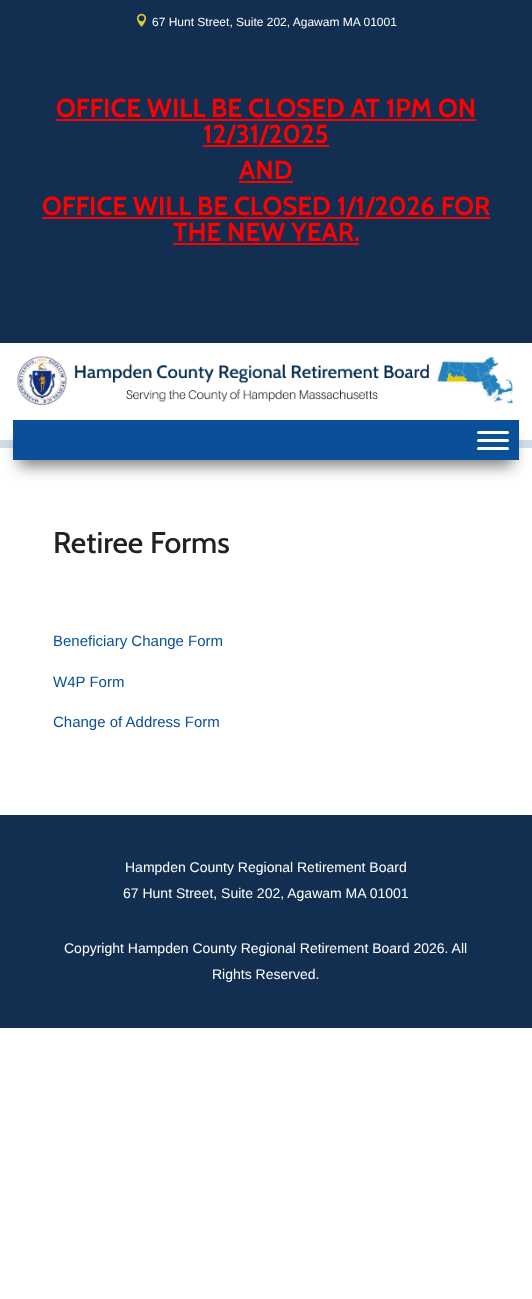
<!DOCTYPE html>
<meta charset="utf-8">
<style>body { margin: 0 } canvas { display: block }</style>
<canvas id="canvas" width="532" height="1299"></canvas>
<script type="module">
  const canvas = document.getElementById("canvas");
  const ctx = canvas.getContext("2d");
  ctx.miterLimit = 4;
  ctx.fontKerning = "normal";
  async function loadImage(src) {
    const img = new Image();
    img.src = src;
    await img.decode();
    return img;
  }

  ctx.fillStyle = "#ffffff";
  ctx.fillRect(0, 0, 532, 1299);
  ctx.fillStyle = "#122e50";
  ctx.fillRect(0, 0, 532, 343);
  ctx.drawImage(await loadImage("img1.png"), 136, 13, 11, 14);
  ctx.font = "12px Liberation Sans";
  ctx.fillStyle = "#ffffff";
  ctx.fillText("67 Hunt Street, Suite 202, Agawam MA 01001", 152, 26);
  ctx.font = "bold 26px Cabin";
  ctx.fillStyle = "#ff0000";
  ctx.fillText("OFFICE WILL BE CLOSED AT 1PM ON", 56, 117);
  ctx.fillRect(56, 119, 420, 2);
  ctx.fillRect(203, 145, 126, 2);
  ctx.fillText("12/31/2025", 203, 143);
  ctx.fillText("AND", 239, 179);
  ctx.fillRect(239, 181, 54, 2);
  ctx.fillRect(42, 217, 448, 2);
  ctx.fillText("OFFICE WILL BE CLOSED 1/1/2026 FOR", 42, 215);
  ctx.fillText("THE NEW YEAR.", 173, 241);
  ctx.fillRect(173, 243, 186, 2);
  ctx.fillStyle = "#d0dde8";
  ctx.fillRect(0, 440, 532, 8);
  ctx.drawImage(await loadImage("img2.png"), 17, 356, 497, 49);
  ctx.fillStyle = "rgba(0, 0, 0, 0.5)";
  ctx.filter = "blur(7.5px)";
  ctx.beginPath();
  ctx.rect(19, 438, 494, 28);
  ctx.fill();
  ctx.filter = "none";
  ctx.fillStyle = "#095098";
  ctx.fillRect(13, 420, 506, 40);
  ctx.fillStyle = "#ffffff";
  ctx.beginPath();
  ctx.roundRect(477, 431, 32, 3, 1.5);
  ctx.fill();
  ctx.beginPath();
  ctx.roundRect(477, 439, 32, 3, 1.5);
  ctx.fill();
  ctx.beginPath();
  ctx.roundRect(477, 447, 32, 3, 1.5);
  ctx.fill();
  ctx.font = "500 30px Cabin";
  ctx.fillStyle = "#212121";
  ctx.fillText("Retiree Forms", 53, 553);
  ctx.font = "15px Liberation Sans";
  ctx.fillStyle = "#095098";
  ctx.fillText("Beneficiary Change Form", 53, 646);
  ctx.fillText("W4P Form", 53, 687);
  ctx.fillText("Change of Address Form", 53, 727);
  ctx.fillStyle = "#122e50";
  ctx.fillRect(0, 815, 532, 213);
  ctx.font = "14px Liberation Sans";
  ctx.fillStyle = "#ffffff";
  ctx.fillText("Hampden County Regional Retirement Board", 125, 872);
  ctx.fillText("67 Hunt Street, Suite 202, Agawam MA 01001", 123, 898);
  ctx.fillText("Copyright Hampden County Regional Retirement Board 2026. All", 64, 953);
  ctx.fillText("Rights Reserved.", 212, 979);
</script>
